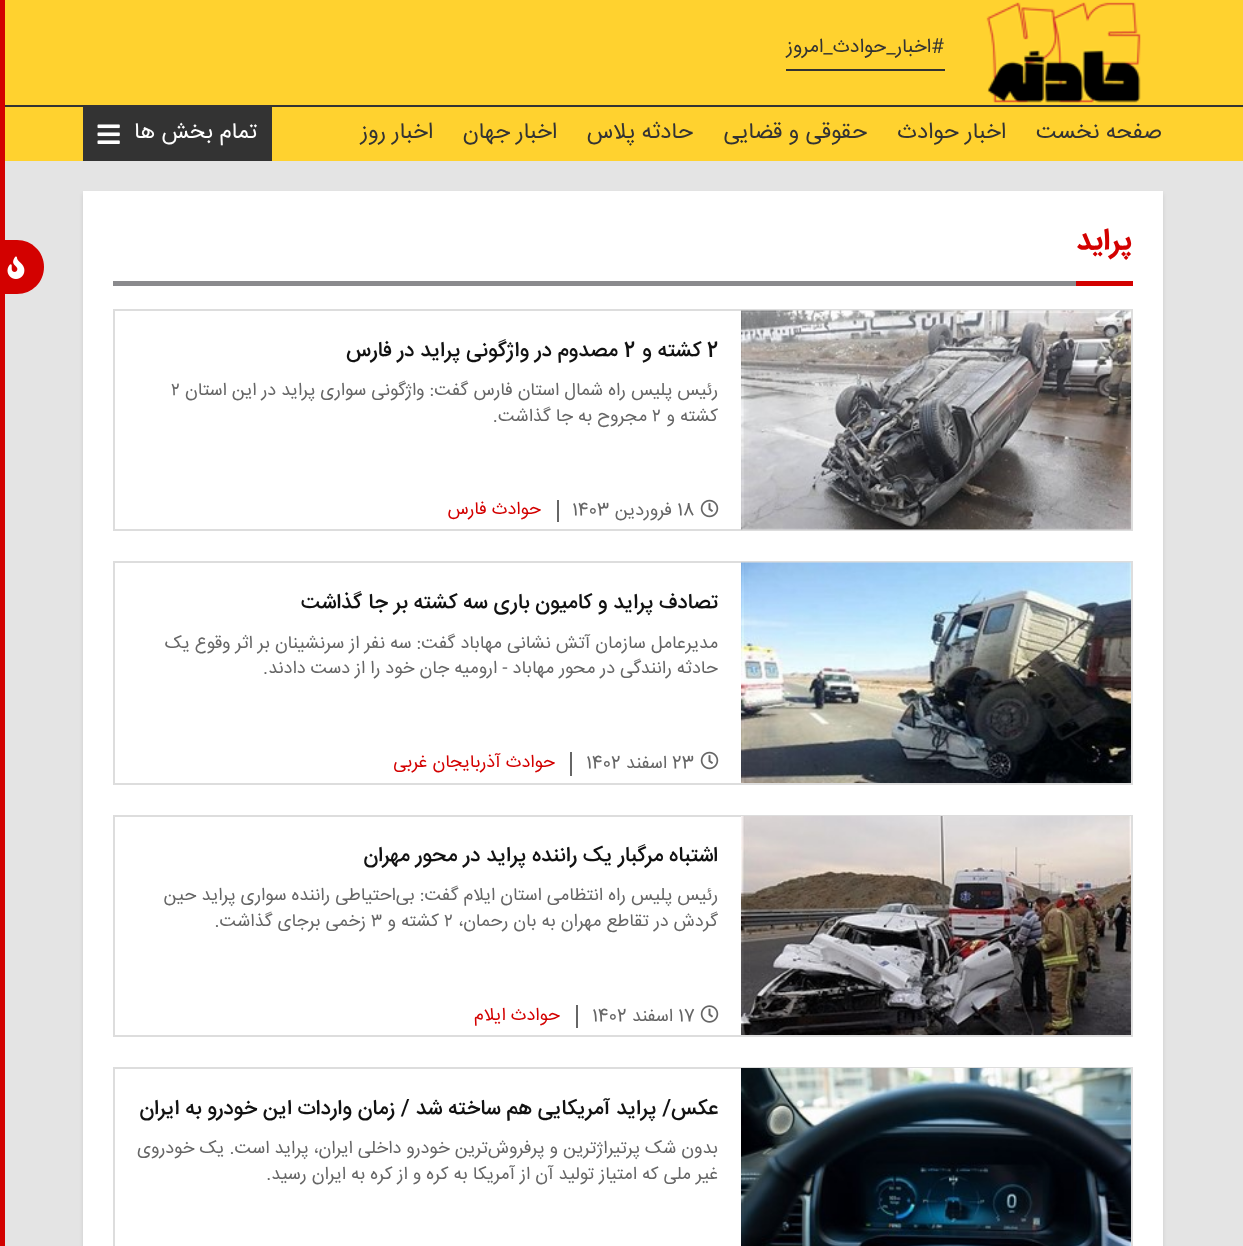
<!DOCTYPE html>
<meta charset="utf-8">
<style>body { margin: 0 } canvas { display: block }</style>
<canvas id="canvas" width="1243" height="1246"></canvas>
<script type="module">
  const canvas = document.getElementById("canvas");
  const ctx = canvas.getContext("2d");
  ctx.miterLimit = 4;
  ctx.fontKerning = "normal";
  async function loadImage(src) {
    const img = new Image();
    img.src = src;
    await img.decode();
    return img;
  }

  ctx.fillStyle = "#e4e4e4";
  ctx.fillRect(0, 0, 1243, 1246);
  ctx.fillStyle = "#ffd22f";
  ctx.fillRect(5, 0, 1238, 105);
  ctx.drawImage(await loadImage("img1.png"), 986, 2, 155, 101);
  ctx.fillStyle = "#333333";
  ctx.fillRect(786, 69, 159, 2);
  ctx.direction = "rtl";
  ctx.font = "19.5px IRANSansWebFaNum";
  ctx.fillText("#اخبار_حوادث_امروز", 944, 52);
  ctx.fillStyle = "#ffd22f";
  ctx.fillRect(5, 107, 1238, 54);
  ctx.fillStyle = "#333333";
  ctx.fillRect(0, 105, 1243, 2);
  ctx.font = "22.5px IRANSansWebFaNum";
  ctx.fillText("صفحه نخست", 1162, 138);
  ctx.fillText("اخبار حوادث", 1006, 138);
  ctx.fillText("حقوقی و قضایی", 867, 138);
  ctx.fillText("حادثه پلاس", 693, 138);
  ctx.fillText("اخبار جهان", 557, 138);
  ctx.fillText("اخبار روز", 433, 138);
  ctx.fillRect(83, 107, 189, 54);
  ctx.fillStyle = "#ffffff";
  ctx.fillText("تمام بخش ها", 257, 138);
  ctx.drawImage(await loadImage("img2.png"), 97, 124, 23, 20);
  ctx.fillStyle = "rgba(0, 0, 0, 0.1)";
  ctx.filter = "blur(2px)";
  ctx.beginPath();
  ctx.rect(83, 194, 1080, 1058);
  ctx.fill();
  ctx.filter = "none";
  ctx.fillStyle = "#ffffff";
  ctx.fillRect(83, 191, 1080, 1055);
  ctx.fillStyle = "#8a8a8d";
  ctx.fillRect(113, 281, 963, 5);
  ctx.font = "bold 30px IRANSansWebFaNum";
  ctx.fillStyle = "#d30100";
  ctx.fillText("پراید", 1132, 249);
  ctx.fillRect(1076, 281, 57, 5);
  ctx.strokeStyle = "#dddddd";
  ctx.lineWidth = 2;
  ctx.strokeRect(114, 310, 1018, 220);
  ctx.drawImage(await loadImage("img3.png"), 741, 310, 390, 220);
  ctx.direction = "ltr";
  ctx.font = "500 21px IRANSansWebFaNum";
  ctx.fillStyle = "#121212";
  ctx.fillText("2", 707, 356);
  ctx.direction = "rtl";
  ctx.fillText("کشته و", 701, 356);
  ctx.direction = "ltr";
  ctx.fillText("2", 624, 356);
  ctx.direction = "rtl";
  ctx.fillText("مصدوم در واژگونی پراید در فارس", 618, 356);
  ctx.font = "18px IRANSansWebFaNum";
  ctx.fillStyle = "#666666";
  ctx.fillText("رئیس پلیس راه شمال استان فارس گفت: واژگونی سواری پراید در این استان", 718, 395);
  ctx.direction = "ltr";
  ctx.fillText("۲", 171, 395);
  ctx.direction = "rtl";
  ctx.fillText("کشته و", 718, 421);
  ctx.direction = "ltr";
  ctx.fillText("۲", 652, 421);
  ctx.direction = "rtl";
  ctx.fillText("مجروح به جا گذاشت.", 647, 421);
  ctx.fillRect(557, 500, 2, 22);
  ctx.drawImage(await loadImage("img4.png"), 700, 499, 19, 19);
  ctx.direction = "ltr";
  ctx.fillText("18", 677, 515);
  ctx.direction = "rtl";
  ctx.fillText("فروردین", 672, 515);
  ctx.direction = "ltr";
  ctx.fillText("1403", 572, 515);
  ctx.direction = "rtl";
  ctx.fillStyle = "#d30100";
  ctx.fillText("حوادث فارس", 541, 514);
  ctx.strokeRect(114, 562, 1018, 222);
  ctx.drawImage(await loadImage("img5.png"), 741, 562, 390, 221);
  ctx.font = "500 21px IRANSansWebFaNum";
  ctx.fillStyle = "#121212";
  ctx.fillText("تصادف پراید و کامیون باری سه کشته بر جا گذاشت", 718, 608);
  ctx.font = "18px IRANSansWebFaNum";
  ctx.fillStyle = "#666666";
  ctx.fillText("مدیرعامل سازمان آتش نشانی مهاباد گفت: سه نفر از سرنشینان بر اثر وقوع یک", 718, 648);
  ctx.fillText("حادثه رانندگی در محور مهاباد - ارومیه جان خود را از دست دادند.", 718, 673);
  ctx.fillRect(570, 752, 2, 24);
  ctx.drawImage(await loadImage("img4.png"), 700, 751, 19, 19);
  ctx.direction = "ltr";
  ctx.fillText("23", 672, 768);
  ctx.direction = "rtl";
  ctx.fillText("اسفند", 667, 768);
  ctx.direction = "ltr";
  ctx.fillText("1402", 586, 768);
  ctx.direction = "rtl";
  ctx.fillStyle = "#d30100";
  ctx.fillText("حوادث آذربایجان غربی", 555, 767);
  ctx.strokeRect(114, 816, 1018, 220);
  ctx.drawImage(await loadImage("img6.png"), 741, 816, 390, 219);
  ctx.font = "500 21px IRANSansWebFaNum";
  ctx.fillStyle = "#121212";
  ctx.fillText("اشتباه مرگبار یک راننده پراید در محور مهران", 718, 861);
  ctx.font = "18px IRANSansWebFaNum";
  ctx.fillStyle = "#666666";
  ctx.fillText("رئیس پلیس راه انتظامی استان ایلام گفت: بی‌احتیاطی راننده سواری پراید حین", 718, 900);
  ctx.fillText("گردش در تقاطع مهران به بان رحمان،", 718, 926);
  ctx.direction = "ltr";
  ctx.fillText("۲", 444, 926);
  ctx.direction = "rtl";
  ctx.fillText("کشته و", 439, 926);
  ctx.direction = "ltr";
  ctx.fillText("۳", 371, 926);
  ctx.direction = "rtl";
  ctx.fillText("زخمی برجای گذاشت.", 366, 926);
  ctx.fillRect(576, 1005, 2, 23);
  ctx.drawImage(await loadImage("img7.png"), 700, 1005, 19, 18);
  ctx.direction = "ltr";
  ctx.fillText("17", 678, 1021);
  ctx.direction = "rtl";
  ctx.fillText("اسفند", 673, 1021);
  ctx.direction = "ltr";
  ctx.fillText("1402", 592, 1021);
  ctx.direction = "rtl";
  ctx.fillStyle = "#d30100";
  ctx.fillText("حوادث ایلام", 560, 1020);
  ctx.strokeRect(114, 1068, 1018, 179);
  ctx.drawImage(await loadImage("img8.png"), 741, 1068, 390, 178);
  ctx.font = "500 21px IRANSansWebFaNum";
  ctx.fillStyle = "#121212";
  ctx.fillText("عکس/ پراید آمریکایی هم ساخته شد / زمان واردات این خودرو به ایران", 718, 1114);
  ctx.font = "18px IRANSansWebFaNum";
  ctx.fillStyle = "#666666";
  ctx.fillText("بدون شک پرتیراژترین و پرفروش‌ترین خودرو داخلی ایران، پراید است. یک خودروی", 718, 1153);
  ctx.fillText("غیر ملی که امتیاز تولید آن از آمریکا به کره و از کره به ایران رسید.", 718, 1179);
  ctx.fillStyle = "#d30100";
  ctx.beginPath();
  ctx.moveTo(-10, 240);
  ctx.lineTo(17, 240);
  ctx.bezierCurveTo(32, 240, 44, 252, 44, 267);
  ctx.bezierCurveTo(44, 282, 32, 294, 17, 294);
  ctx.lineTo(-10, 294);
  ctx.closePath();
  ctx.fill();
  ctx.fillRect(0, 0, 5, 1246);
  ctx.drawImage(await loadImage("img9.png"), 7, 256, 18, 23);
</script>
